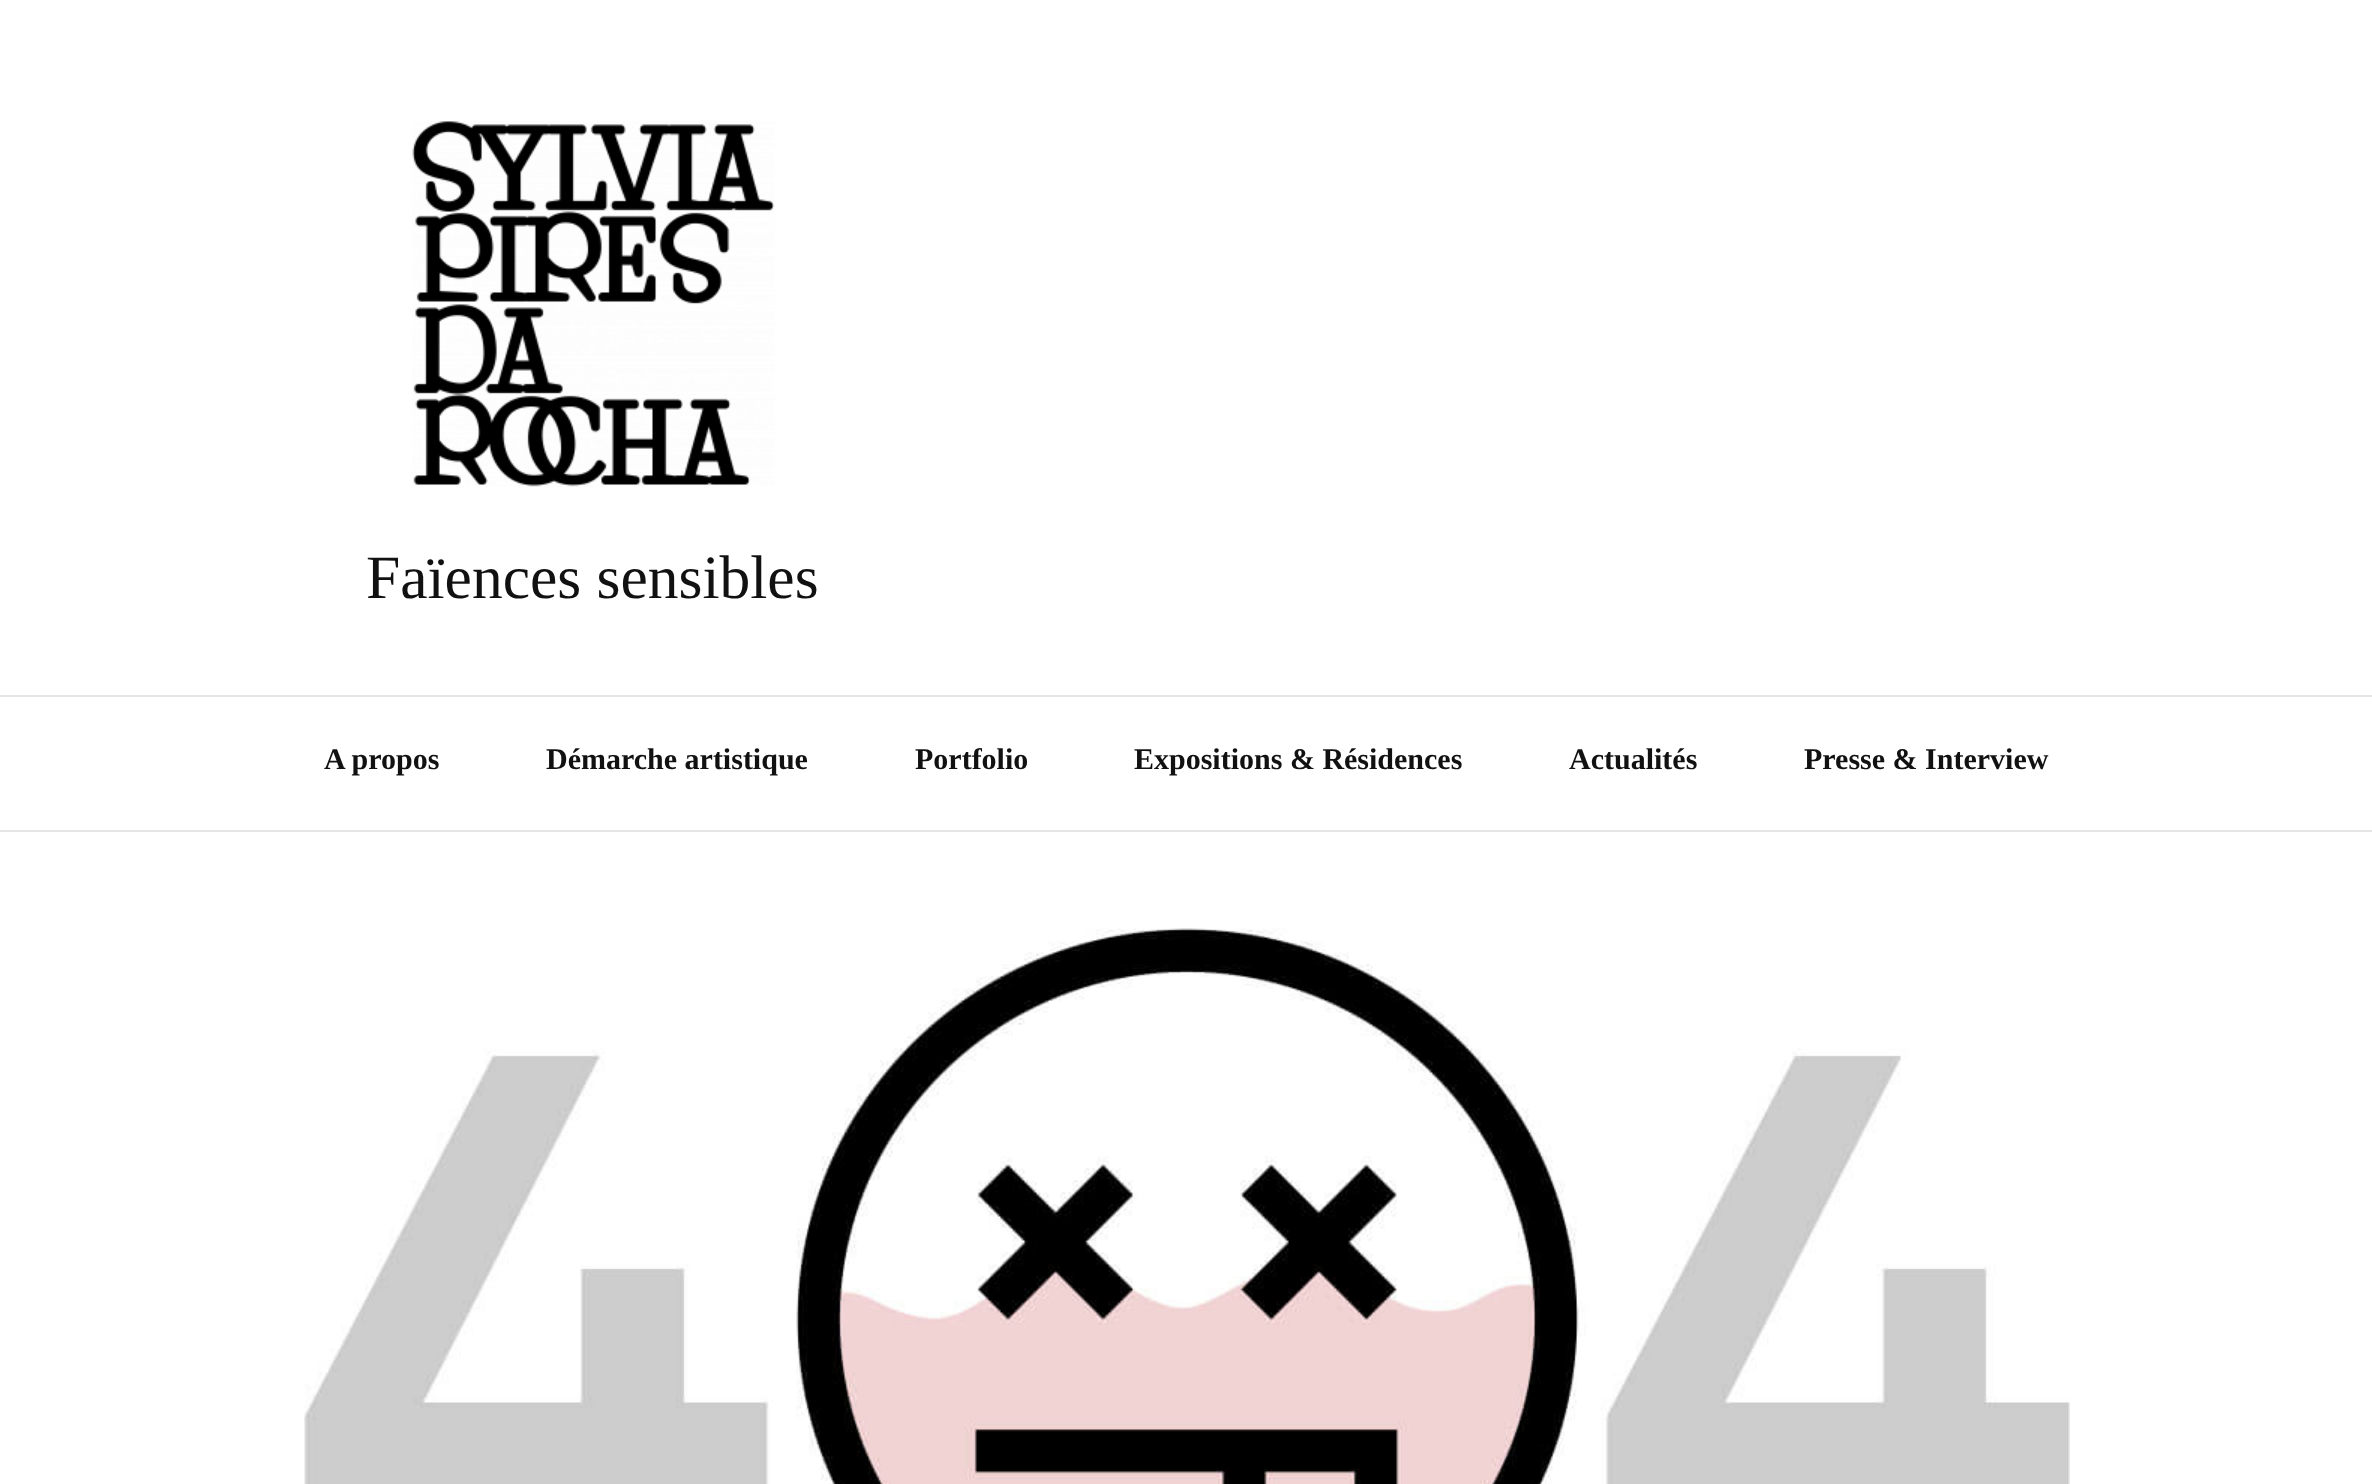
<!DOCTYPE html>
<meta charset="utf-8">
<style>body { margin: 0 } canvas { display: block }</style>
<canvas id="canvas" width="2372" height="1484"></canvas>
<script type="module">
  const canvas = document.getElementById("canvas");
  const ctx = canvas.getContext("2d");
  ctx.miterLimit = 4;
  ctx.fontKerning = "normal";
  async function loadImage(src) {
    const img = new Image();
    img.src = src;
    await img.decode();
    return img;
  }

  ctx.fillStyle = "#ffffff";
  ctx.fillRect(0, 0, 2372, 1484);
  ctx.drawImage(await loadImage("img1.png"), 412, 121, 363, 366);
  ctx.font = "61.5px Liberation Serif";
  ctx.fillStyle = "#111111";
  ctx.fillText("Faïences sensibles", 366, 598);
  ctx.fillStyle = "#e5e5e5";
  ctx.fillRect(0, 695, 2372, 2);
  ctx.fillRect(0, 830, 2372, 2);
  ctx.font = "bold 30px Liberation Serif";
  ctx.fillStyle = "#111111";
  ctx.fillText("A propos", 324, 769);
  ctx.fillText("Démarche artistique", 546, 769);
  ctx.fillText("Portfolio", 915, 769);
  ctx.fillText("Expositions & Résidences", 1134, 769);
  ctx.fillText("Actualités", 1569, 769);
  ctx.fillText("Presse & Interview", 1804, 769);
  ctx.drawImage(await loadImage("img2.png"), 304, 928, 1766, 556);
</script>
